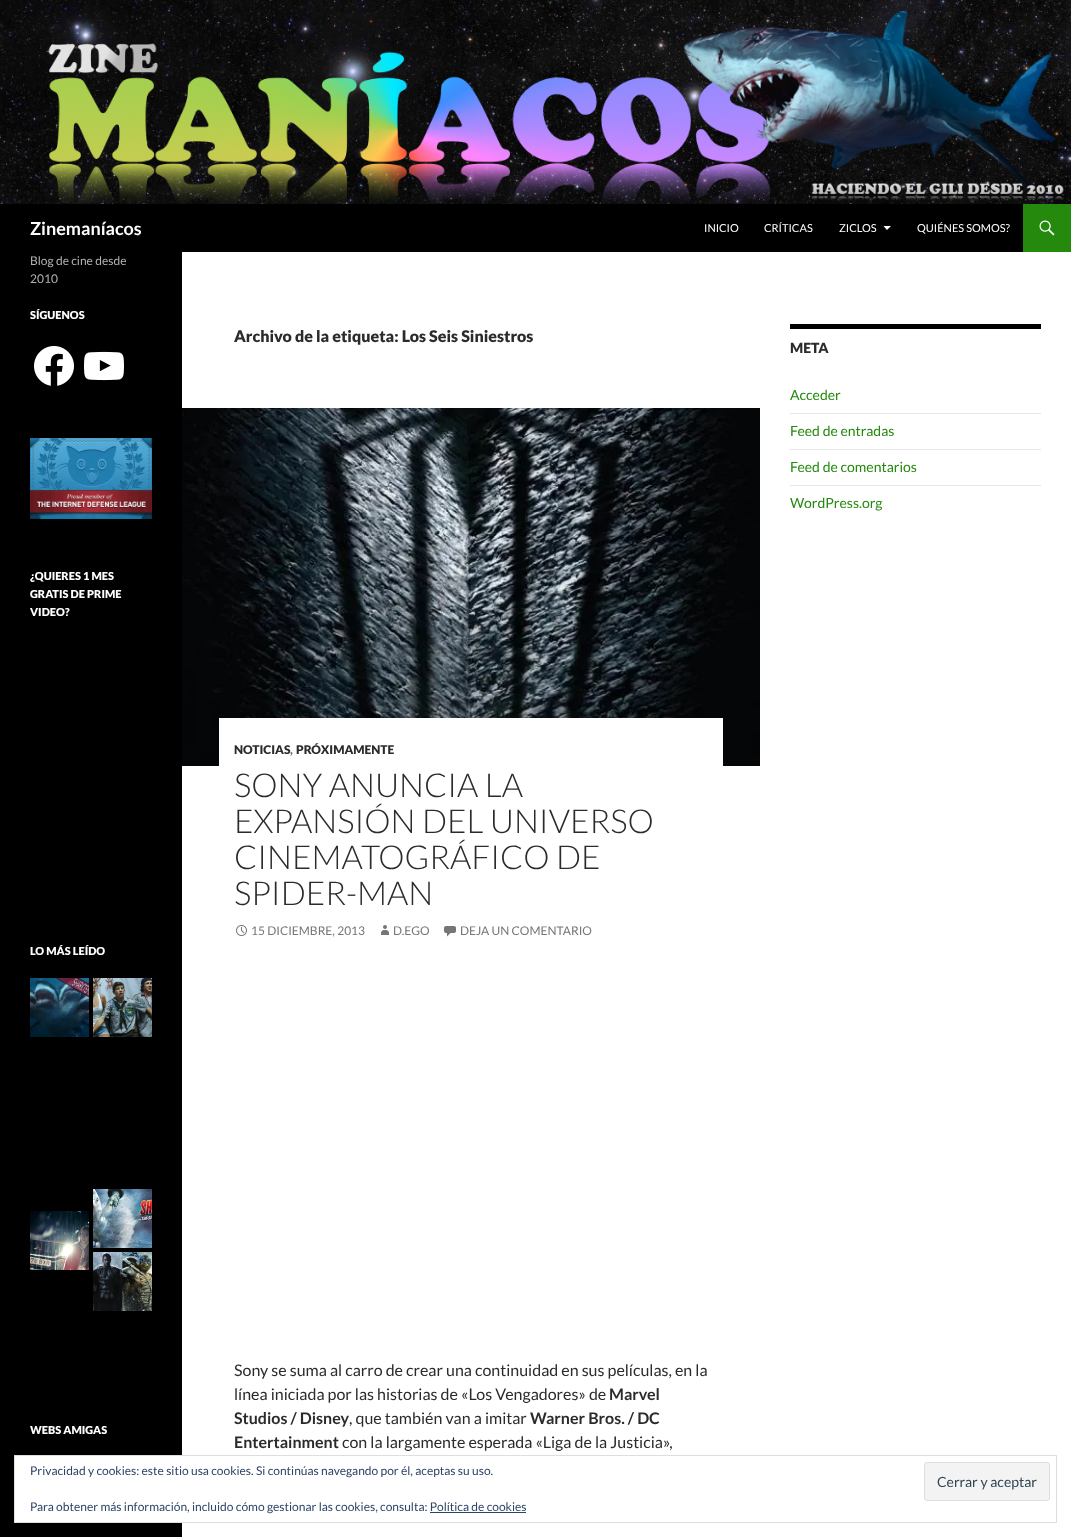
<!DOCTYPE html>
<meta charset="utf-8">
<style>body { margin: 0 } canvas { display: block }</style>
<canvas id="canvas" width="1071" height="1537"></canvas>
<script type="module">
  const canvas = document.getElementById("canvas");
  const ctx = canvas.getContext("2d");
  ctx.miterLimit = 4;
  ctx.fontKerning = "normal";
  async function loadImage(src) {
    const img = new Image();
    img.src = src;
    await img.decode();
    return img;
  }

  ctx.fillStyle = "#ffffff";
  ctx.fillRect(0, 0, 1071, 1537);
  ctx.drawImage(await loadImage("img1.png"), 0, 0, 1071, 204);
  ctx.fillStyle = "#000000";
  ctx.fillRect(0, 204, 1023, 48);
  ctx.font = "bold 18px Lato";
  ctx.fillStyle = "#ffffff";
  ctx.fillText("Zinemaníacos", 30, 235);
  ctx.font = "11px Lato";
  ctx.fillText("INICIO", 704, 232);
  ctx.fillText("CRÍTICAS", 764, 232);
  ctx.fillText("ZICLOS", 839, 232);
  ctx.beginPath();
  ctx.moveTo(883.5, 226);
  ctx.lineTo(891, 226);
  ctx.lineTo(887, 230);
  ctx.closePath();
  ctx.fill();
  ctx.fillText("QUIÉNES SOMOS?", 917, 232);
  ctx.fillStyle = "#24890d";
  ctx.fillRect(1023, 204, 48, 48);
  ctx.drawImage(await loadImage("img2.png"), 1039, 220, 16, 16);
  ctx.fillStyle = "#000000";
  ctx.fillRect(0, 252, 182, 1285);
  ctx.font = "12px Lato";
  ctx.fillStyle = "#b3b3b3";
  ctx.fillText("Blog de cine desde", 30, 265);
  ctx.fillText("2010", 30, 283);
  ctx.font = "900 11px Lato";
  ctx.fillStyle = "#ffffff";
  ctx.fillText("SÍGUENOS", 30, 319);
  ctx.drawImage(await loadImage("img3.png"), 34, 346, 40, 40);
  ctx.drawImage(await loadImage("img4.png"), 84, 351, 40, 30);
  ctx.drawImage(await loadImage("img5.png"), 30, 438, 122, 81);
  ctx.fillText("¿QUIERES 1 MES", 30, 580);
  ctx.fillText("GRATIS DE PRIME", 30, 598);
  ctx.fillText("VIDEO?", 30, 616);
  ctx.fillText("LO MÁS LEÍDO", 30, 955);
  ctx.drawImage(await loadImage("img6.png"), 30, 978, 59, 59);
  ctx.drawImage(await loadImage("img7.png"), 93, 978, 59, 59);
  ctx.drawImage(await loadImage("img8.png"), 30, 1211, 59, 59);
  ctx.drawImage(await loadImage("img9.png"), 93, 1189, 59, 59);
  ctx.drawImage(await loadImage("img10.png"), 93, 1252, 59, 59);
  ctx.fillText("WEBS AMIGAS", 30, 1434);
  ctx.font = "900 16px Lato";
  ctx.fillStyle = "#2b2b2b";
  ctx.fillText("Archivo de la etiqueta: Los Seis Siniestros", 234, 342);
  ctx.drawImage(await loadImage("img11.png"), 182, 408, 578, 358);
  ctx.fillStyle = "#ffffff";
  ctx.fillRect(219, 718, 504, 48);
  ctx.font = "900 12px Lato";
  ctx.fillStyle = "#2b2b2b";
  ctx.fillText("NOTICIAS", 234, 754);
  ctx.fillStyle = "#767676";
  ctx.fillText(",", 290, 754);
  ctx.fillStyle = "#2b2b2b";
  ctx.fillText("PRÓXIMAMENTE", 296, 754);
  ctx.font = "300 33px Lato";
  ctx.fillText("SONY ANUNCIA LA", 234, 797);
  ctx.fillText("EXPANSIÓN DEL UNIVERSO", 234, 833);
  ctx.fillText("CINEMATOGRÁFICO DE", 234, 869);
  ctx.fillText("SPIDER-MAN", 234, 905);
  ctx.drawImage(await loadImage("img12.png"), 236, 925, 11, 11);
  ctx.font = "12px Lato";
  ctx.fillStyle = "#767676";
  ctx.fillText("15 DICIEMBRE, 2013", 251, 935);
  ctx.drawImage(await loadImage("img13.png"), 381, 925, 8, 10);
  ctx.fillText("D.EGO", 393, 935);
  ctx.drawImage(await loadImage("img14.png"), 444, 926, 12, 11);
  ctx.fillText("DEJA UN COMENTARIO", 460, 935);
  ctx.font = "16px Lato";
  ctx.fillStyle = "#2b2b2b";
  ctx.fillText("Sony se suma al carro de crear una continuidad en sus películas, en la", 234, 1376);
  ctx.fillText("línea iniciada por las historias de «Los Vengadores» de", 234, 1400);
  ctx.font = "bold 16px Lato";
  ctx.fillText("Marvel", 609, 1400);
  ctx.fillText("Studios / Disney", 234, 1424);
  ctx.font = "16px Lato";
  ctx.fillText(", que también van a imitar", 349, 1424);
  ctx.font = "bold 16px Lato";
  ctx.fillText("Warner Bros. / DC", 530, 1424);
  ctx.fillText("Entertainment", 234, 1448);
  ctx.font = "16px Lato";
  ctx.fillText("con la largamente esperada «Liga de la Justicia»,", 342, 1448);
  ctx.fillStyle = "#000000";
  ctx.fillRect(790, 324, 251, 5);
  ctx.font = "900 14px Lato";
  ctx.fillStyle = "#2b2b2b";
  ctx.fillText("META", 790, 353);
  ctx.font = "14px Lato";
  ctx.fillStyle = "#24890d";
  ctx.fillText("Acceder", 790, 400);
  ctx.fillStyle = "#e6e6e6";
  ctx.fillRect(790, 413, 251, 1);
  ctx.fillStyle = "#24890d";
  ctx.fillText("Feed de entradas", 790, 436);
  ctx.fillStyle = "#e6e6e6";
  ctx.fillRect(790, 449, 251, 1);
  ctx.fillStyle = "#24890d";
  ctx.fillText("Feed de comentarios", 790, 472);
  ctx.fillStyle = "#e6e6e6";
  ctx.fillRect(790, 485, 251, 1);
  ctx.fillStyle = "#24890d";
  ctx.fillText("WordPress.org", 790, 508);
  ctx.fillStyle = "#ffffff";
  ctx.fillRect(15, 1456, 167, 66);
  ctx.strokeStyle = "#dedede";
  ctx.strokeRect(14.5, 1455.5, 1042, 67);
  ctx.font = "12px Lato";
  ctx.fillStyle = "#2e4467";
  ctx.fillText("Privacidad y cookies: este sitio usa cookies. Si continúas navegando por él, aceptas su uso.", 30, 1475);
  ctx.fillStyle = "#f3f3f3";
  ctx.beginPath();
  ctx.roundRect(924.5, 1462.5, 125, 38, 2.5);
  ctx.fill();
  ctx.stroke();
  ctx.font = "14px Lato";
  ctx.fillStyle = "#2e4453";
  ctx.fillText("Cerrar y aceptar", 937, 1487);
  ctx.font = "12px Lato";
  ctx.fillStyle = "#2e4467";
  ctx.fillText("Para obtener más información, incluido cómo gestionar las cookies, consulta: Política de cookies", 30, 1511);
  ctx.fillRect(430, 1512, 96, 1);
</script>
